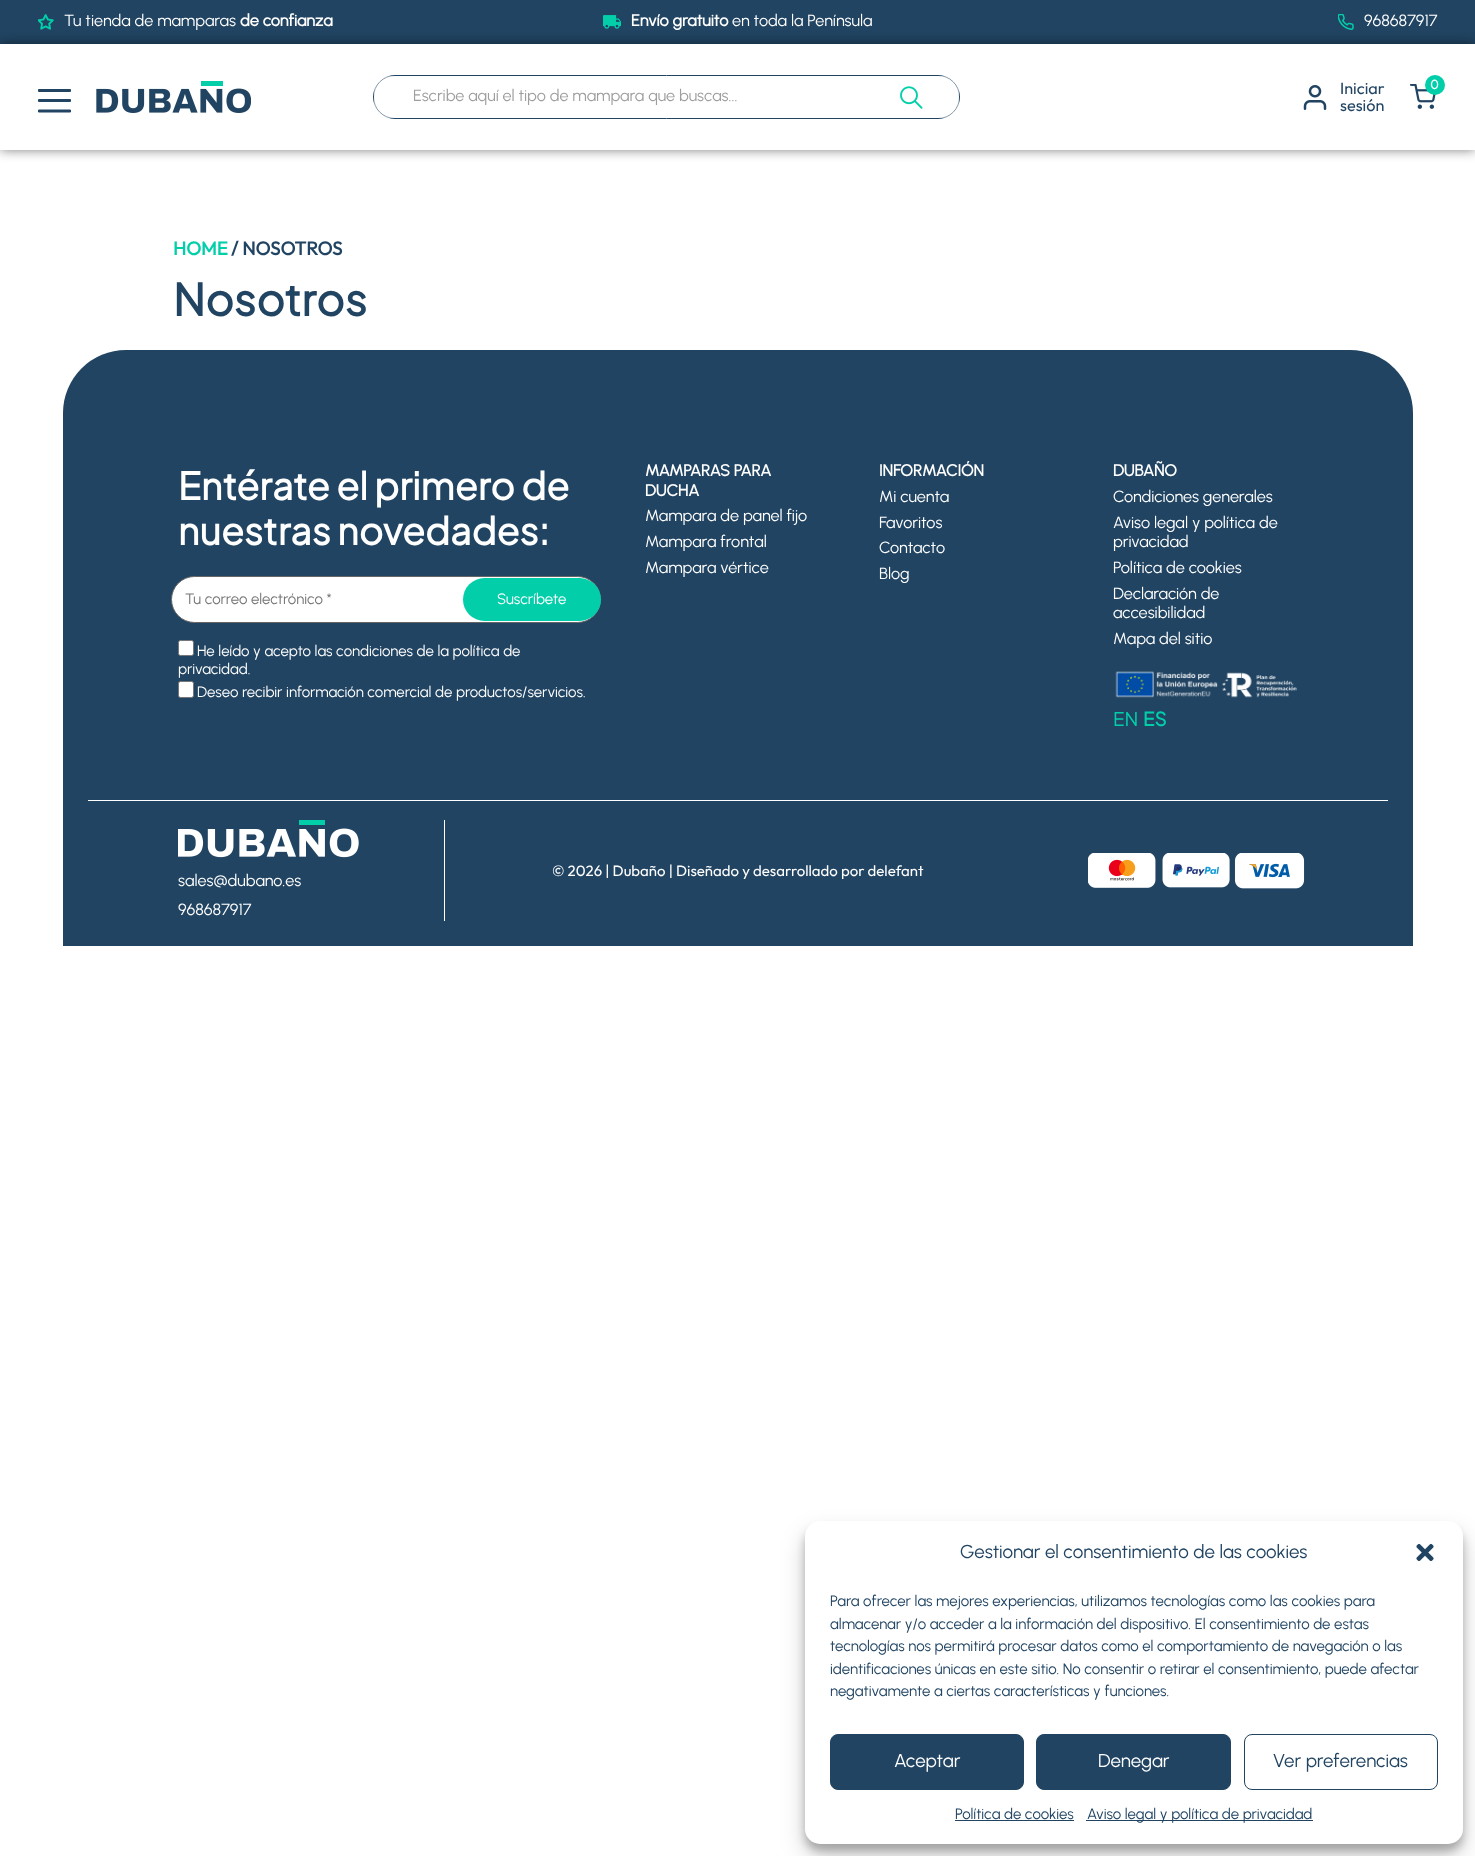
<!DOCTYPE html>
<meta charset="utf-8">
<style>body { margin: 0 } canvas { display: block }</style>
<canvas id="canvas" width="1475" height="1856"></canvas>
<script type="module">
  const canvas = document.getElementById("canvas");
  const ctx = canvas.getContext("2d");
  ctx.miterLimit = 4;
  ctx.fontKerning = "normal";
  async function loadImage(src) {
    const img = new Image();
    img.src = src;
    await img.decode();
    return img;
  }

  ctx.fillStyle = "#ffffff";
  ctx.fillRect(0, 0, 1475, 1856);
  ctx.fillStyle = "#214462";
  ctx.fillRect(0, 0, 1475, 44);
  ctx.drawImage(await loadImage("img1.png"), 38, 14, 16, 16);
  ctx.font = "16.25px Urbanist";
  ctx.fillStyle = "#ffffff";
  ctx.fillText("Tu tienda de mamparas", 64, 26);
  ctx.font = "bold 16.25px Urbanist";
  ctx.fillText("de confianza", 240, 26);
  ctx.drawImage(await loadImage("img2.png"), 603, 15, 18, 14);
  ctx.fillText("Envío gratuito", 631, 26);
  ctx.font = "16.25px Urbanist";
  ctx.fillText("en toda la Península", 732, 26);
  ctx.drawImage(await loadImage("img3.png"), 1338, 14, 16, 16);
  ctx.fillText("968687917", 1364, 26);
  ctx.save();
  ctx.beginPath();
  ctx.moveTo(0, 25);
  ctx.lineTo(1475, 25);
  ctx.lineTo(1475, 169);
  ctx.lineTo(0, 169);
  ctx.closePath();
  ctx.moveTo(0, 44);
  ctx.lineTo(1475, 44);
  ctx.lineTo(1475, 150);
  ctx.lineTo(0, 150);
  ctx.closePath();
  ctx.clip("evenodd");
  ctx.fillStyle = "rgba(0, 0, 0, 0.5)";
  ctx.filter = "blur(6px)";
  ctx.beginPath();
  ctx.rect(0, 44, 1475, 106);
  ctx.fill();
  ctx.filter = "none";
  ctx.restore();
  ctx.save();
  ctx.beginPath();
  ctx.rect(38, 84, 33, 34);
  ctx.clip();
  ctx.beginPath();
  ctx.moveTo(39, 100.5);
  ctx.lineTo(70, 100.5);
  ctx.moveTo(39, 90.5);
  ctx.lineTo(70, 90.5);
  ctx.moveTo(39, 111);
  ctx.lineTo(70, 111);
  ctx.strokeStyle = "#214462";
  ctx.lineWidth = 2.8;
  ctx.lineCap = "round";
  ctx.lineJoin = "round";
  ctx.stroke();
  ctx.restore();
  ctx.drawImage(await loadImage("img4.png"), 96, 81, 155, 32);
  ctx.beginPath();
  ctx.roundRect(373.5, 75.5, 586, 43, 21.5);
  ctx.strokeStyle = "#214462";
  ctx.stroke();
  ctx.fillStyle = "rgba(255, 255, 255, 0.45)";
  ctx.beginPath();
  ctx.roundRect(374, 76, 585, 42, 4);
  ctx.fill();
  ctx.fillStyle = "#9e9e9e";
  ctx.fillText("Escribe aquí el tipo de mampara que buscas...", 413, 101);
  ctx.drawImage(await loadImage("img5.png"), 900, 86, 23, 23);
  ctx.drawImage(await loadImage("img6.png"), 1303, 85, 24, 25);
  ctx.font = "16.25px Outfit";
  ctx.fillStyle = "#214462";
  ctx.fillText("Iniciar", 1340, 94);
  ctx.fillText("sesión", 1340, 111);
  ctx.drawImage(await loadImage("img7.png"), 1410, 84, 26, 25);
  ctx.fillStyle = "#02cfaa";
  ctx.beginPath();
  ctx.arc(1435, 85, 10, 0, Math.PI * 2);
  ctx.fill();
  ctx.font = "bold 12px Plus Jakarta Sans";
  ctx.fillStyle = "#ffffff";
  ctx.fillText("0", 1430, 89);
  ctx.font = "bold 18.75px Outfit";
  ctx.fillStyle = "#02cfaa";
  ctx.fillText("HOME", 173, 255);
  ctx.fillStyle = "#214462";
  ctx.fillText("/ NOSOTROS", 231, 255);
  ctx.font = "bold 43.75px Plus Jakarta Sans";
  ctx.fillText("Nosotros", 173, 316);
  ctx.beginPath();
  ctx.roundRect(63, 350, 1350, 596, [63, 63, 0, 0]);
  ctx.fill();
  ctx.font = "bold 37.5px Plus Jakarta Sans";
  ctx.fillStyle = "#ffffff";
  ctx.fillText("Entérate el primero de", 178, 500);
  ctx.fillText("nuestras novedades:", 178, 545);
  ctx.beginPath();
  ctx.roundRect(171.5, 576.5, 429, 46, 23);
  ctx.fill();
  ctx.strokeStyle = "#666666";
  ctx.stroke();
  ctx.font = "15px Urbanist";
  ctx.fillStyle = "#757575";
  ctx.fillText("Tu correo electrónico *", 185, 604);
  ctx.fillStyle = "#02cfaa";
  ctx.beginPath();
  ctx.roundRect(463, 578, 138, 43, 21.5);
  ctx.fill();
  ctx.fillStyle = "#ffffff";
  ctx.fillText("Suscríbete", 497, 604);
  ctx.beginPath();
  ctx.roundRect(178.5, 640.5, 15, 15, 2);
  ctx.fill();
  ctx.strokeStyle = "#767676";
  ctx.stroke();
  ctx.fillText("He leído y acepto las condiciones de la política de", 197, 656);
  ctx.fillText("privacidad.", 178, 674);
  ctx.beginPath();
  ctx.roundRect(178.5, 681.5, 15, 16, 2);
  ctx.fill();
  ctx.stroke();
  ctx.fillText("Deseo recibir información comercial de productos/servicios.", 197, 697);
  ctx.font = "bold 16.25px Urbanist";
  ctx.fillText("MAMPARAS PARA", 645, 476);
  ctx.fillText("DUCHA", 645, 496);
  ctx.font = "16.25px Urbanist";
  ctx.fillText("Mampara de panel fijo", 645, 521);
  ctx.fillText("Mampara frontal", 645, 547);
  ctx.fillText("Mampara vértice", 645, 573);
  ctx.font = "bold 16.25px Urbanist";
  ctx.fillText("INFORMACIÓN", 879, 476);
  ctx.font = "16.25px Urbanist";
  ctx.fillText("Mi cuenta", 879, 502);
  ctx.fillText("Favoritos", 879, 528);
  ctx.fillText("Contacto", 879, 553);
  ctx.fillText("Blog", 879, 579);
  ctx.font = "bold 16.25px Urbanist";
  ctx.fillText("DUBAÑO", 1113, 476);
  ctx.font = "16.25px Urbanist";
  ctx.fillText("Condiciones generales", 1113, 502);
  ctx.fillText("Aviso legal y política de", 1113, 528);
  ctx.fillText("privacidad", 1113, 547);
  ctx.fillText("Política de cookies", 1113, 573);
  ctx.fillText("Declaración de", 1113, 599);
  ctx.fillText("accesibilidad", 1113, 618);
  ctx.fillText("Mapa del sitio", 1113, 644);
  ctx.drawImage(await loadImage("img8.png"), 1115, 671, 182, 27);
  ctx.font = "18.75px Plus Jakarta Sans";
  ctx.fillStyle = "#02cfaa";
  ctx.fillText("EN", 1113, 726);
  ctx.font = "bold 18.75px Plus Jakarta Sans";
  ctx.fillText("ES", 1143, 726);
  ctx.fillStyle = "#ffffff";
  ctx.fillRect(88, 800, 1300, 1);
  ctx.font = "15px Outfit";
  ctx.fillText("© 2026 | Dubaño | Diseñado y desarrollado por delefant", 552, 876);
  ctx.drawImage(await loadImage("img9.png"), 1088, 853, 217, 36);
  ctx.fillRect(444, 820, 1, 101);
  ctx.drawImage(await loadImage("img10.png"), 178, 820, 181, 38);
  ctx.font = "16.25px Urbanist";
  ctx.fillText("sales@dubano.es", 178, 886);
  ctx.fillText("968687917", 178, 915);
  ctx.fillStyle = "rgba(0, 0, 0, 0.23)";
  ctx.filter = "blur(4px)";
  ctx.beginPath();
  ctx.roundRect(805, 1529, 658, 322, 15);
  ctx.fill();
  ctx.filter = "none";
  ctx.fillStyle = "rgba(0, 0, 0, 0.19)";
  ctx.filter = "blur(12.5px)";
  ctx.beginPath();
  ctx.roundRect(805, 1534, 658, 322, 15);
  ctx.fill();
  ctx.filter = "none";
  ctx.fillStyle = "#ffffff";
  ctx.beginPath();
  ctx.roundRect(805, 1521, 658, 323, 15);
  ctx.fill();
  ctx.font = "18.75px Urbanist";
  ctx.fillStyle = "#214462";
  ctx.fillText("Gestionar el consentimiento de las cookies", 960, 1558);
  ctx.drawImage(await loadImage("img11.png"), 1416, 1543, 18, 18);
  ctx.font = "15px Urbanist";
  ctx.fillText("Para ofrecer las mejores experiencias, utilizamos tecnologías como las cookies para", 830, 1606);
  ctx.fillText("almacenar y/o acceder a la información del dispositivo. El consentimiento de estas", 830, 1629);
  ctx.fillText("tecnologías nos permitirá procesar datos como el comportamiento de navegación o las", 830, 1651);
  ctx.fillText("identificaciones únicas en este sitio. No consentir o retirar el consentimiento, puede afectar", 830, 1674);
  ctx.fillText("negativamente a ciertas características y funciones.", 830, 1696);
  ctx.beginPath();
  ctx.roundRect(830.5, 1734.5, 193, 55, 7.5);
  ctx.fill();
  ctx.strokeStyle = "#214462";
  ctx.stroke();
  ctx.font = "18.75px Urbanist";
  ctx.fillStyle = "#ffffff";
  ctx.fillText("Aceptar", 894, 1767);
  ctx.fillStyle = "#214462";
  ctx.beginPath();
  ctx.roundRect(1036.5, 1734.5, 194, 55, 7.5);
  ctx.fill();
  ctx.stroke();
  ctx.fillStyle = "#ffffff";
  ctx.fillText("Denegar", 1098, 1767);
  ctx.beginPath();
  ctx.roundRect(1244.5, 1734.5, 193, 55, 7.5);
  ctx.stroke();
  ctx.fillStyle = "#214462";
  ctx.fillText("Ver preferencias", 1273, 1767);
  ctx.font = "15px Urbanist";
  ctx.fillText("Política de cookies", 955, 1819);
  ctx.fillRect(955, 1820, 119, 1);
  ctx.fillRect(1086, 1820, 227, 1);
  ctx.fillText("Aviso legal y política de privacidad", 1087, 1819);
</script>
